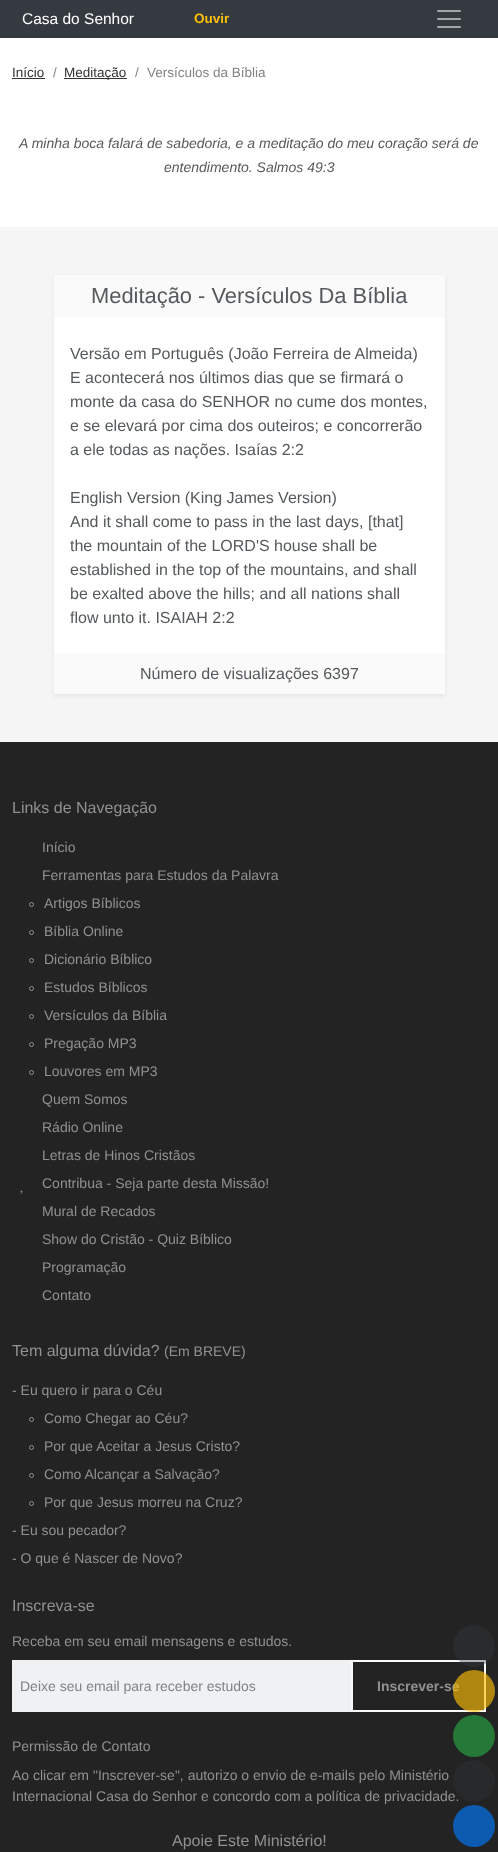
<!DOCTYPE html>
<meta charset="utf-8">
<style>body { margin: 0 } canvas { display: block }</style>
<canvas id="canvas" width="498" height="1852"></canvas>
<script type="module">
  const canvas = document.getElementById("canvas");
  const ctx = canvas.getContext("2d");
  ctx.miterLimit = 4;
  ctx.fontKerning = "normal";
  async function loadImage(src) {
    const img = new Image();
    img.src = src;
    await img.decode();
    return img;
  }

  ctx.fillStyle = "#ffffff";
  ctx.fillRect(0, 0, 498, 1852);
  ctx.fillStyle = "#343a40";
  ctx.fillRect(0, 0, 498, 38);
  ctx.font = "15.5px Liberation Sans";
  ctx.fillStyle = "#ffffff";
  ctx.fillText("Casa do Senhor", 22, 24);
  ctx.font = "bold 13.5px Liberation Sans";
  ctx.fillStyle = "#ffc107";
  ctx.fillText("Ouvir", 194, 23);
  ctx.drawImage(await loadImage("img1.png"), 437, 10, 24, 18);
  ctx.font = "13.5px Liberation Sans";
  ctx.fillStyle = "#333333";
  ctx.fillText("Início", 12, 77);
  ctx.fillRect(12, 78, 33, 1);
  ctx.fillStyle = "#808385";
  ctx.fillText("/", 53, 77);
  ctx.fillStyle = "#333333";
  ctx.fillRect(64, 78, 63, 1);
  ctx.fillText("Meditação", 64, 77);
  ctx.fillStyle = "#808385";
  ctx.fillText("/", 135, 77);
  ctx.fillText("Versículos da Bíblia", 147, 77);
  ctx.font = "italic 14px Liberation Sans";
  ctx.fillStyle = "#55595c";
  ctx.fillText("A minha boca falará de sabedoria, e a meditação do meu coração será de", 19, 148);
  ctx.fillText("entendimento. Salmos 49:3", 164, 172);
  ctx.fillStyle = "#f5f5f5";
  ctx.fillRect(0, 227, 498, 515);
  ctx.fillStyle = "rgba(0, 0, 0, 0.07)";
  ctx.filter = "blur(2px)";
  ctx.beginPath();
  ctx.rect(54, 277, 391, 419);
  ctx.fill();
  ctx.filter = "none";
  ctx.fillStyle = "#ffffff";
  ctx.fillRect(54, 318, 391, 336);
  ctx.fillStyle = "#fafafa";
  ctx.fillRect(54, 275, 391, 43);
  ctx.font = "21.9px Liberation Sans";
  ctx.fillStyle = "#55595c";
  ctx.fillText("Meditação - Versículos Da Bíblia", 91, 303);
  ctx.font = "16px Liberation Sans";
  ctx.fillText("Versão em Português (João Ferreira de Almeida)", 70, 359);
  ctx.fillText("E acontecerá nos últimos dias que se firmará o", 70, 383);
  ctx.fillText("monte da casa do SENHOR no cume dos montes,", 70, 407);
  ctx.fillText("e se elevará por cima dos outeiros; e concorrerão", 70, 431);
  ctx.fillText("a ele todas as nações. Isaías 2:2", 70, 455);
  ctx.fillText("English Version (King James Version)", 70, 503);
  ctx.fillText("And it shall come to pass in the last days, [that]", 70, 527);
  ctx.fillText("the mountain of the LORD'S house shall be", 70, 551);
  ctx.fillText("established in the top of the mountains, and shall", 70, 575);
  ctx.fillText("be exalted above the hills; and all nations shall", 70, 599);
  ctx.fillText("flow unto it. ISAIAH 2:2", 70, 623);
  ctx.fillStyle = "#fafafa";
  ctx.fillRect(54, 654, 391, 40);
  ctx.fillStyle = "#55595c";
  ctx.fillText("Número de visualizações 6397", 140, 679);
  ctx.fillStyle = "#232323";
  ctx.fillRect(0, 742, 498, 1110);
  ctx.fillStyle = "#919191";
  ctx.fillText("Links de Navegação", 12, 813);
  ctx.font = "14px Liberation Sans";
  ctx.fillText("Início", 42, 852);
  ctx.fillText("Ferramentas para Estudos da Palavra", 42, 880);
  ctx.beginPath();
  ctx.arc(31.5, 904.5, 2, 0, Math.PI * 2);
  ctx.strokeStyle = "#919191";
  ctx.stroke();
  ctx.fillText("Artigos Bíblicos", 44, 908);
  ctx.beginPath();
  ctx.arc(31.5, 932.5, 2, 0, Math.PI * 2);
  ctx.stroke();
  ctx.fillText("Bíblia Online", 44, 936);
  ctx.beginPath();
  ctx.arc(31.5, 960.5, 2, 0, Math.PI * 2);
  ctx.stroke();
  ctx.fillText("Dicionário Bíblico", 44, 964);
  ctx.beginPath();
  ctx.arc(31.5, 988.5, 2, 0, Math.PI * 2);
  ctx.stroke();
  ctx.fillText("Estudos Bíblicos", 44, 992);
  ctx.beginPath();
  ctx.arc(31.5, 1016.5, 2, 0, Math.PI * 2);
  ctx.stroke();
  ctx.fillText("Versículos da Bíblia", 44, 1020);
  ctx.beginPath();
  ctx.arc(31.5, 1044.5, 2, 0, Math.PI * 2);
  ctx.stroke();
  ctx.fillText("Pregação MP3", 44, 1048);
  ctx.beginPath();
  ctx.arc(31.5, 1072.5, 2, 0, Math.PI * 2);
  ctx.stroke();
  ctx.fillText("Louvores em MP3", 44, 1076);
  ctx.fillText("Quem Somos", 42, 1104);
  ctx.fillText("Rádio Online", 42, 1132);
  ctx.fillText("Letras de Hinos Cristãos", 42, 1160);
  ctx.fillText("Contribua - Seja parte desta Missão!", 42, 1188);
  ctx.drawImage(await loadImage("img2.png"), 20, 1190, 3, 4);
  ctx.fillText("Mural de Recados", 42, 1216);
  ctx.fillText("Show do Cristão - Quiz Bíblico", 42, 1244);
  ctx.fillText("Programação", 42, 1272);
  ctx.fillText("Contato", 42, 1300);
  ctx.font = "16px Liberation Sans";
  ctx.fillText("Tem alguma dúvida?", 12, 1356);
  ctx.font = "14px Liberation Sans";
  ctx.fillText("(Em BREVE)", 164, 1356);
  ctx.fillText("- Eu quero ir para o Céu", 12, 1395);
  ctx.beginPath();
  ctx.arc(31.5, 1419.5, 2, 0, Math.PI * 2);
  ctx.stroke();
  ctx.fillText("Como Chegar ao Céu?", 44, 1423);
  ctx.beginPath();
  ctx.arc(31.5, 1447.5, 2, 0, Math.PI * 2);
  ctx.stroke();
  ctx.fillText("Por que Aceitar a Jesus Cristo?", 44, 1451);
  ctx.beginPath();
  ctx.arc(31.5, 1475.5, 2, 0, Math.PI * 2);
  ctx.stroke();
  ctx.fillText("Como Alcançar a Salvação?", 44, 1479);
  ctx.beginPath();
  ctx.arc(31.5, 1503.5, 2, 0, Math.PI * 2);
  ctx.stroke();
  ctx.fillText("Por que Jesus morreu na Cruz?", 44, 1507);
  ctx.fillText("- Eu sou pecador?", 12, 1535);
  ctx.fillText("- O que é Nascer de Novo?", 12, 1563);
  ctx.font = "16px Liberation Sans";
  ctx.fillText("Inscreva-se", 12, 1611);
  ctx.font = "14px Liberation Sans";
  ctx.fillText("Receba em seu email mensagens e estudos.", 12, 1646);
  ctx.fillStyle = "#f0f1f2";
  ctx.fillRect(12, 1660, 339, 52);
  ctx.fillStyle = "#808385";
  ctx.fillText("Deixe seu email para receber estudos", 20, 1691);
  ctx.strokeStyle = "#f8f9fa";
  ctx.lineWidth = 2;
  ctx.strokeRect(352, 1661, 133, 50);
  ctx.font = "bold 14px Liberation Sans";
  ctx.fillStyle = "#919191";
  ctx.fillText("Inscrever-se", 377, 1691);
  ctx.font = "14px Liberation Sans";
  ctx.fillText("Permissão de Contato", 12, 1751);
  ctx.fillText("Ao clicar em \"Inscrever-se\", autorizo o envio de e-mails pelo Ministério", 12, 1780);
  ctx.fillText("Internacional Casa do Senhor e concordo com a política de privacidade.", 12, 1801);
  ctx.font = "16px Liberation Sans";
  ctx.fillText("Apoie Este Ministério!", 172, 1846);
  ctx.fillStyle = "rgba(52, 58, 64, 0.36)";
  ctx.beginPath();
  ctx.arc(474, 1646, 21, 0, Math.PI * 2);
  ctx.fill();
  ctx.fillStyle = "rgba(255, 193, 7, 0.64)";
  ctx.beginPath();
  ctx.arc(474, 1691, 21, 0, Math.PI * 2);
  ctx.fill();
  ctx.fillStyle = "#267839";
  ctx.beginPath();
  ctx.arc(474, 1736, 21, 0, Math.PI * 2);
  ctx.fill();
  ctx.fillStyle = "#28292b";
  ctx.beginPath();
  ctx.arc(474, 1781, 21, 0, Math.PI * 2);
  ctx.fill();
  ctx.fillStyle = "#0d5bb0";
  ctx.beginPath();
  ctx.arc(474, 1826, 21, 0, Math.PI * 2);
  ctx.fill();
</script>
